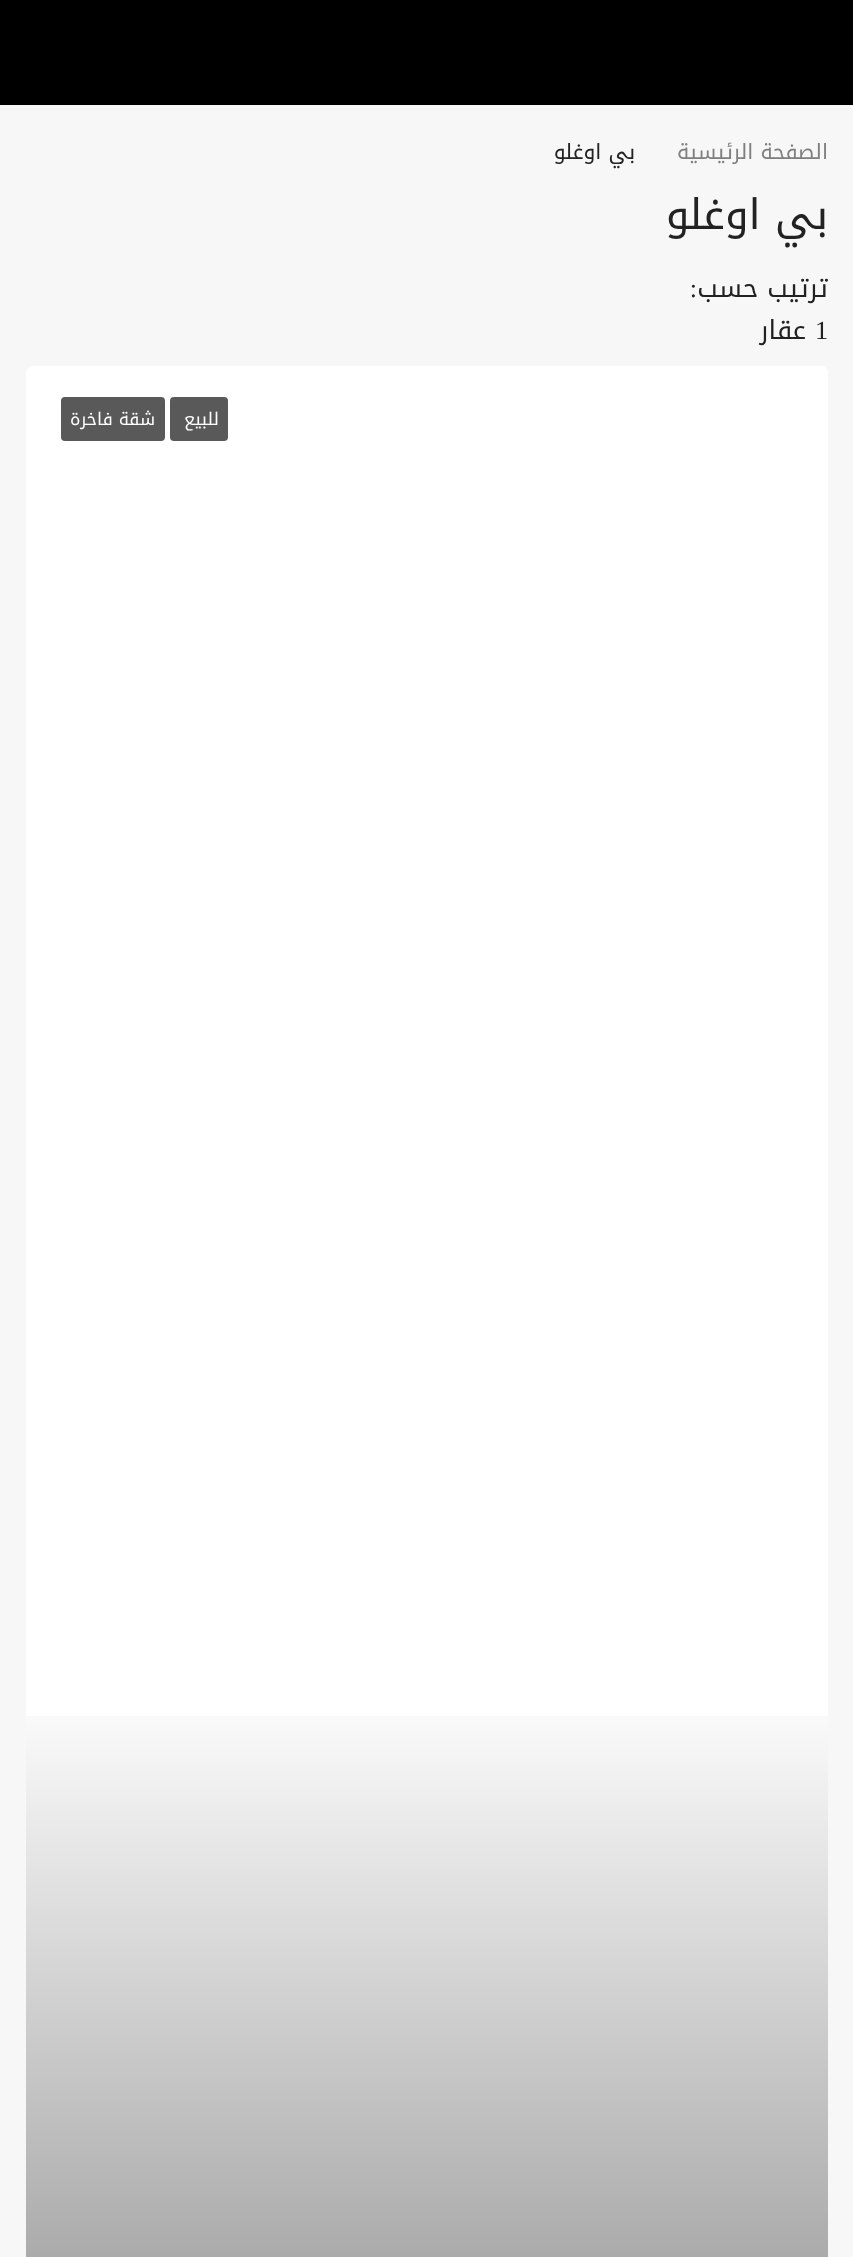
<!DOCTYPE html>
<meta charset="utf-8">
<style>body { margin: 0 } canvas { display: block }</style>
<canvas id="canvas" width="853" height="2257"></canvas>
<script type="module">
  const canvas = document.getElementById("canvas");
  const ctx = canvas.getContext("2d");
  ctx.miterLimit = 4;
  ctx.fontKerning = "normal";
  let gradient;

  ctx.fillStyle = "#f7f7f7";
  ctx.fillRect(0, 0, 853, 2257);
  ctx.fillStyle = "#000000";
  ctx.fillRect(0, 0, 853, 105);
  ctx.direction = "rtl";
  ctx.font = "21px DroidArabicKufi";
  ctx.fillStyle = "#7f7f7f";
  ctx.fillText("الصفحة الرئيسية", 828, 159);
  ctx.fillStyle = "#222222";
  ctx.fillText("بي اوغلو", 635, 159);
  ctx.font = "42px DroidArabicKufi";
  ctx.fillText("بي اوغلو", 828, 229);
  ctx.font = "26.25px DroidArabicKufi";
  ctx.fillText("ترتيب حسب", 828, 297);
  ctx.font = "26.25px Liberation Serif";
  ctx.fillText(":", 697, 297);
  ctx.direction = "ltr";
  ctx.fillText("1", 815, 339);
  ctx.direction = "rtl";
  ctx.font = "26.25px DroidArabicKufi";
  ctx.fillText("عقار", 806, 339);
  ctx.fillStyle = "#ffffff";
  ctx.beginPath();
  ctx.moveTo(33, 366);
  ctx.lineTo(821, 366);
  ctx.bezierCurveTo(825, 366, 828, 369, 828, 373);
  ctx.lineTo(828, 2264);
  ctx.lineTo(26, 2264);
  ctx.lineTo(26, 373);
  ctx.bezierCurveTo(26, 369, 29, 366, 33, 366);
  ctx.closePath();
  ctx.fill();
  ctx.fillStyle = "#595959";
  ctx.beginPath();
  ctx.roundRect(170, 397, 58, 44, 4);
  ctx.fill();
  ctx.font = "17.5px DroidArabicKufi";
  ctx.fillStyle = "#ffffff";
  ctx.fillText("للبيع", 219, 425);
  ctx.fillStyle = "#595959";
  ctx.beginPath();
  ctx.roundRect(61, 397, 104, 44, 4);
  ctx.fill();
  ctx.fillStyle = "#ffffff";
  ctx.fillText("شقة فاخرة", 155, 425);
  gradient = ctx.createLinearGradient(427, 366, 427, 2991);
  gradient.addColorStop(0, "rgba(0, 0, 0, 0)");
  gradient.addColorStop(0.5, "rgba(0, 0, 0, 0)");
  gradient.addColorStop(1, "rgba(0, 0, 0, 0.75)");
  ctx.fillStyle = gradient;
  ctx.fillRect(26, 1716, 802, 541);
</script>
